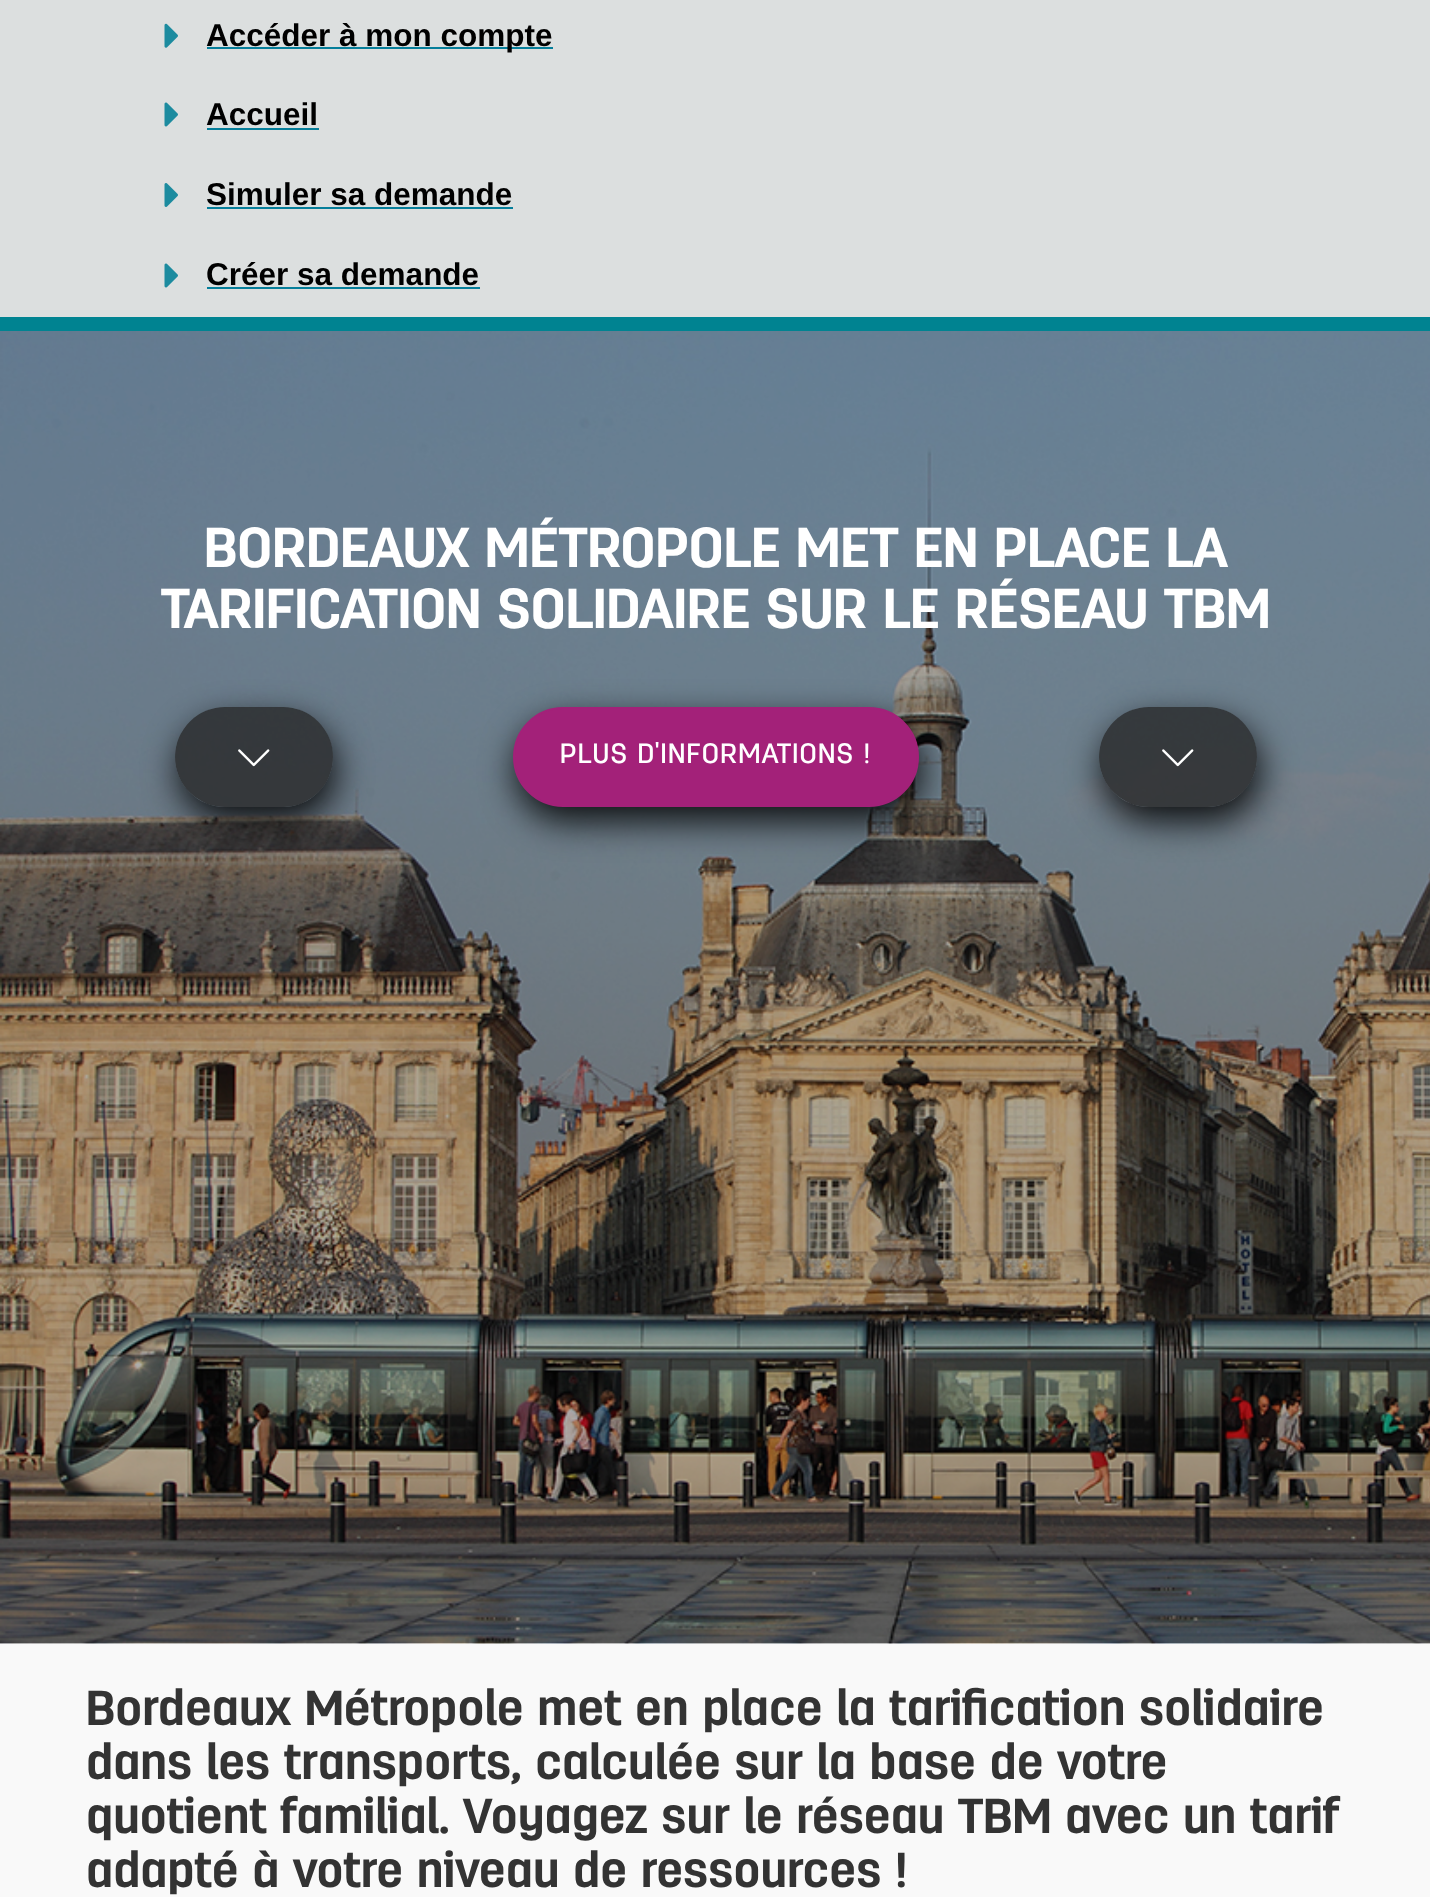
<!DOCTYPE html>
<meta charset="utf-8">
<style>body { margin: 0 } canvas { display: block }</style>
<canvas id="canvas" width="1430" height="1897"></canvas>
<script type="module">
  const canvas = document.getElementById("canvas");
  const ctx = canvas.getContext("2d");
  ctx.miterLimit = 4;
  ctx.fontKerning = "normal";
  async function loadImage(src) {
    const img = new Image();
    img.src = src;
    await img.decode();
    return img;
  }

  ctx.fillStyle = "#dcdfdf";
  ctx.fillRect(0, 0, 1430, 1897);
  ctx.drawImage(await loadImage("img1.png"), 164, 23, 14, 25);
  ctx.fillStyle = "#057e9a";
  ctx.fillRect(207, 47, 346, 2);
  ctx.font = "bold 31.5px Liberation Sans";
  ctx.fillStyle = "#000000";
  ctx.fillText("Accéder à mon compte", 206, 46);
  ctx.drawImage(await loadImage("img2.png"), 164, 102, 14, 25);
  ctx.fillText("Accueil", 206, 125);
  ctx.fillStyle = "#057e9a";
  ctx.fillRect(207, 128, 112, 2);
  ctx.drawImage(await loadImage("img3.png"), 164, 183, 14, 24);
  ctx.fillStyle = "#000000";
  ctx.fillText("Simuler sa demande", 206, 205);
  ctx.fillStyle = "#057e9a";
  ctx.fillRect(207, 207, 306, 2);
  ctx.drawImage(await loadImage("img2.png"), 164, 263, 14, 25);
  ctx.fillStyle = "#000000";
  ctx.fillText("Créer sa demande", 206, 285);
  ctx.fillStyle = "#057e9a";
  ctx.fillRect(207, 287, 273, 2);
  ctx.fillStyle = "#008391";
  ctx.fillRect(0, 317, 1430, 14);
  ctx.fillStyle = "#f9f9f9";
  ctx.fillRect(0, 1643, 1430, 254);
  ctx.drawImage(await loadImage("img4.png"), 0, 331, 1430, 1313);
  ctx.font = "bold 56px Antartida";
  ctx.fillStyle = "#ffffff";
  ctx.fillText("BORDEAUX MÉTROPOLE MET EN PLACE LA", 204, 567);
  ctx.fillText("TARIFICATION SOLIDAIRE SUR LE RÉSEAU TBM", 161, 628);
  ctx.save();
  ctx.beginPath();
  ctx.moveTo(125, 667);
  ctx.lineTo(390, 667);
  ctx.lineTo(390, 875);
  ctx.lineTo(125, 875);
  ctx.closePath();
  ctx.moveTo(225, 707);
  ctx.lineTo(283, 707);
  ctx.bezierCurveTo(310.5, 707, 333, 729.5, 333, 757);
  ctx.bezierCurveTo(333, 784.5, 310.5, 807, 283, 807);
  ctx.lineTo(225, 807);
  ctx.bezierCurveTo(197.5, 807, 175, 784.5, 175, 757);
  ctx.bezierCurveTo(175, 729.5, 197.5, 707, 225, 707);
  ctx.closePath();
  ctx.clip("evenodd");
  ctx.fillStyle = "rgba(1, 1, 1, 0.9)";
  ctx.filter = "blur(17.5px)";
  ctx.beginPath();
  ctx.roundRect(179, 721, 157, 100, 50);
  ctx.fill();
  ctx.filter = "none";
  ctx.restore();
  ctx.fillStyle = "rgba(37, 37, 37, 0.77)";
  ctx.beginPath();
  ctx.roundRect(175, 707, 158, 100, 50);
  ctx.fill();
  ctx.drawImage(await loadImage("img5.png"), 238, 749, 32, 18);
  ctx.fillStyle = "rgba(1, 1, 1, 0.9)";
  ctx.filter = "blur(17.5px)";
  ctx.beginPath();
  ctx.roundRect(516, 721, 406, 100, 50);
  ctx.fill();
  ctx.filter = "none";
  ctx.fillStyle = "#a32179";
  ctx.beginPath();
  ctx.roundRect(514, 708, 404, 98, 49);
  ctx.fill();
  ctx.strokeStyle = "#a32179";
  ctx.lineWidth = 2;
  ctx.stroke();
  ctx.letterSpacing = "1.3px";
  ctx.font = "500 28px Antartida";
  ctx.fillStyle = "#ffffff";
  ctx.fillText("PLUS D'INFORMATIONS !", 560, 763);
  ctx.save();
  ctx.beginPath();
  ctx.moveTo(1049, 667);
  ctx.lineTo(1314, 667);
  ctx.lineTo(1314, 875);
  ctx.lineTo(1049, 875);
  ctx.closePath();
  ctx.moveTo(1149, 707);
  ctx.lineTo(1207, 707);
  ctx.bezierCurveTo(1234.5, 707, 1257, 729.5, 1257, 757);
  ctx.bezierCurveTo(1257, 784.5, 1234.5, 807, 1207, 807);
  ctx.lineTo(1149, 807);
  ctx.bezierCurveTo(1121.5, 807, 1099, 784.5, 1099, 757);
  ctx.bezierCurveTo(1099, 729.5, 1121.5, 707, 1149, 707);
  ctx.closePath();
  ctx.clip("evenodd");
  ctx.fillStyle = "rgba(1, 1, 1, 0.9)";
  ctx.filter = "blur(17.5px)";
  ctx.beginPath();
  ctx.roundRect(1103, 721, 157, 100, 50);
  ctx.fill();
  ctx.filter = "none";
  ctx.restore();
  ctx.fillStyle = "rgba(37, 37, 37, 0.77)";
  ctx.beginPath();
  ctx.roundRect(1099, 707, 158, 100, 50);
  ctx.fill();
  ctx.drawImage(await loadImage("img6.png"), 1162, 749, 32, 18);
  ctx.letterSpacing = "0px";
  ctx.font = "bold 49px Antartida";
  ctx.fillStyle = "#333333";
  ctx.fillText("Bordeaux Métropole met en place la tarification solidaire", 86, 1725);
  ctx.fillText("dans les transports, calculée sur la base de votre", 86, 1779);
  ctx.fillText("quotient familial. Voyagez sur le réseau TBM avec un tarif", 86, 1833);
  ctx.fillText("adapté à votre niveau de ressources !", 86, 1887);
</script>
